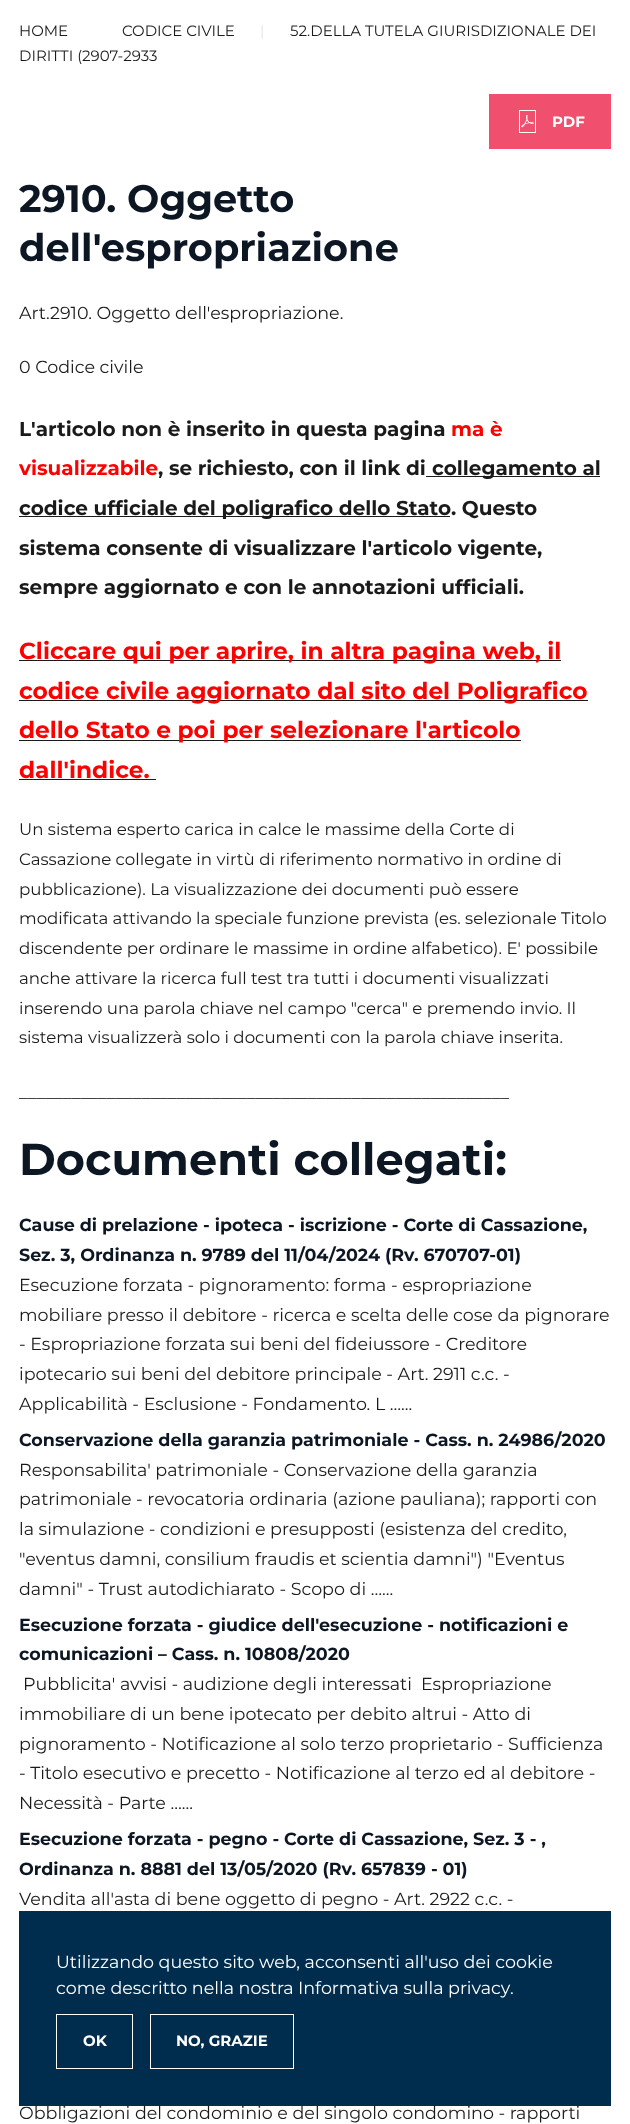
<!DOCTYPE html>
<meta charset="utf-8">
<style>body { margin: 0 } canvas { display: block }</style>
<canvas id="canvas" width="630" height="2124"></canvas>
<script type="module">
  const canvas = document.getElementById("canvas");
  const ctx = canvas.getContext("2d");
  ctx.miterLimit = 4;
  ctx.fontKerning = "normal";
  async function loadImage(src) {
    const img = new Image();
    img.src = src;
    await img.decode();
    return img;
  }

  ctx.fillStyle = "#ffffff";
  ctx.fillRect(0, 0, 630, 2124);
  ctx.font = "100 15px 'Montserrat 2'";
  ctx.fillStyle = "#e6e6e6";
  ctx.fillText("|", 260, 36);
  ctx.fillStyle = "#1a1a1a";
  ctx.fillText("52.DELLA TUTELA GIURISDIZIONALE DEI", 290, 36);
  ctx.fillText("DIRITTI (2907-2933", 19, 61);
  ctx.fillText("HOME", 19, 36);
  ctx.fillText("CODICE CIVILE", 122, 36);
  ctx.fillStyle = "#f0506e";
  ctx.fillRect(489, 94, 122, 55);
  ctx.drawImage(await loadImage("img1.png"), 519, 110, 17, 23);
  ctx.font = "100 15px Montserrat";
  ctx.fillStyle = "#ffffff";
  ctx.fillText("PDF", 552, 127);
  ctx.font = "100 38.25px Montserrat";
  ctx.fillStyle = "#0d1724";
  ctx.fillText("2910. Oggetto", 19, 212);
  ctx.fillText("dell'espropriazione", 19, 261);
  ctx.font = "100 17.5px 'Montserrat 2'";
  ctx.fillStyle = "#1a1a1a";
  ctx.fillText("Art.2910. Oggetto dell'espropriazione.", 19, 319);
  ctx.fillText("0 Codice civile", 19, 373);
  ctx.font = "100 20px Montserrat";
  ctx.fillText("L'articolo non è inserito in questa pagina", 19, 436);
  ctx.fillStyle = "#ff0000";
  ctx.fillText("ma è", 451, 436);
  ctx.fillText("visualizzabile", 19, 475);
  ctx.fillStyle = "#1a1a1a";
  ctx.fillText(", se richiesto, con il link di", 158, 475);
  ctx.fillRect(426, 476, 174, 1);
  ctx.fillText("collegamento al", 432, 475);
  ctx.fillRect(19, 516, 431, 1);
  ctx.fillText("codice ufficiale del poligrafico dello Stat", 19, 515);
  ctx.fillText("o. Questo", 438, 515);
  ctx.fillText("sistema consente di visualizzare l'articolo vigente,", 19, 555);
  ctx.fillText("sempre aggiornato e con le annotazioni ufficiali.", 19, 594);
  ctx.fillRect(19, 660, 542, 1);
  ctx.font = "100 23.3px Montserrat";
  ctx.fillStyle = "#ff0000";
  ctx.fillText("Cliccare qui per aprire, in altra pagina web, il", 19, 659);
  ctx.fillStyle = "#1a1a1a";
  ctx.fillRect(19, 700, 569, 1);
  ctx.fillStyle = "#ff0000";
  ctx.fillText("codice civile aggiornato dal sito del Poligrafico", 19, 699);
  ctx.fillStyle = "#1a1a1a";
  ctx.fillRect(19, 740, 502, 1);
  ctx.fillStyle = "#ff0000";
  ctx.fillText("dello Stato e poi per selezionare l'articolo", 19, 738);
  ctx.fillText("dall'indice.", 19, 778);
  ctx.fillStyle = "#1a1a1a";
  ctx.fillRect(19, 779, 137, 1);
  ctx.font = "100 16.65px 'Montserrat 2'";
  ctx.fillText("Un sistema esperto carica in calce le massime della Corte di", 19, 835);
  ctx.fillText("Cassazione collegate in virtù di riferimento normativo in ordine di", 19, 865);
  ctx.fillText("pubblicazione). La visualizzazione dei documenti può essere", 19, 895);
  ctx.fillText("modificata attivando la speciale funzione prevista (es. selezionale Titolo", 19, 924);
  ctx.fillText("discendente per ordinare le massime in ordine alfabetico). E' possibile", 19, 954);
  ctx.fillText("anche attivare la ricerca full test tra tutti i documenti visualizzati", 19, 984);
  ctx.fillText("inserendo una parola chiave nel campo \"cerca\" e premendo invio. Il", 19, 1014);
  ctx.fillText("sistema visualizzerà solo i documenti con la parola chiave inserita.", 19, 1043);
  ctx.font = "100 17.5px 'Montserrat 2'";
  ctx.fillText("________________________________________________________", 19, 1098);
  ctx.font = "100 44.6px Montserrat";
  ctx.fillStyle = "#0d1724";
  ctx.fillText("Documenti collegati:", 19, 1175);
  ctx.font = "100 17.5px Montserrat";
  ctx.fillText("Cause di prelazione - ipoteca - iscrizione - Corte di Cassazione,", 19, 1231);
  ctx.fillText("Sez. 3, Ordinanza n. 9789 del 11/04/2024 (Rv. 670707-01)", 19, 1261);
  ctx.font = "100 17.5px 'Montserrat 2'";
  ctx.fillStyle = "#1a1a1a";
  ctx.fillText("Esecuzione forzata - pignoramento: forma - espropriazione", 19, 1291);
  ctx.fillText("mobiliare presso il debitore - ricerca e scelta delle cose da pignorare", 19, 1321);
  ctx.fillText("- Espropriazione forzata sui beni del fideiussore - Creditore", 19, 1350);
  ctx.fillText("ipotecario sui beni del debitore principale - Art. 2911 c.c. -", 19, 1380);
  ctx.fillText("Applicabilità - Esclusione - Fondamento. L …...", 19, 1410);
  ctx.font = "100 17.5px Montserrat";
  ctx.fillStyle = "#0d1724";
  ctx.fillText("Conservazione della garanzia patrimoniale - Cass. n. 24986/2020", 19, 1446);
  ctx.font = "100 17.5px 'Montserrat 2'";
  ctx.fillStyle = "#1a1a1a";
  ctx.fillText("Responsabilita' patrimoniale - Conservazione della garanzia", 19, 1476);
  ctx.fillText("patrimoniale - revocatoria ordinaria (azione pauliana); rapporti con", 19, 1505);
  ctx.fillText("la simulazione - condizioni e presupposti (esistenza del credito,", 19, 1535);
  ctx.fillText("\"eventus damni, consilium fraudis et scientia damni\") \"Eventus", 19, 1565);
  ctx.fillText("damni\" - Trust autodichiarato - Scopo di …...", 19, 1595);
  ctx.font = "100 17.5px Montserrat";
  ctx.fillStyle = "#0d1724";
  ctx.fillText("Esecuzione forzata - giudice dell'esecuzione - notificazioni e", 19, 1631);
  ctx.fillText("comunicazioni – Cass. n. 10808/2020", 19, 1660);
  ctx.font = "100 17.5px 'Montserrat 2'";
  ctx.fillStyle = "#1a1a1a";
  ctx.fillText("Pubblicita' avvisi - audizione degli interessati", 23, 1690);
  ctx.fillText("Espropriazione", 421, 1690);
  ctx.fillText("immobiliare di un bene ipotecato per debito altrui - Atto di", 19, 1720);
  ctx.fillText("pignoramento - Notificazione al solo terzo proprietario - Sufficienza", 19, 1750);
  ctx.fillText("- Titolo esecutivo e precetto - Notificazione al terzo ed al debitore -", 19, 1779);
  ctx.fillText("Necessità - Parte …...", 19, 1809);
  ctx.font = "100 17.5px Montserrat";
  ctx.fillStyle = "#0d1724";
  ctx.fillText("Esecuzione forzata - pegno - Corte di Cassazione, Sez. 3 - ,", 19, 1845);
  ctx.fillText("Ordinanza n. 8881 del 13/05/2020 (Rv. 657839 - 01)", 19, 1875);
  ctx.font = "100 17.5px 'Montserrat 2'";
  ctx.fillStyle = "#1a1a1a";
  ctx.fillText("Vendita all'asta di bene oggetto di pegno - Art. 2922 c.c. -", 19, 1905);
  ctx.fillText("Obbligazioni del condominio e del singolo condomino - rapporti", 19, 2119);
  ctx.fillStyle = "#002d4d";
  ctx.fillRect(19, 1911, 592, 195);
  ctx.fillStyle = "#ffffff";
  ctx.fillText("Utilizzando questo sito web, acconsenti all'uso dei cookie", 56, 1968);
  ctx.fillText("come descritto nella nostra", 56, 1994);
  ctx.fillText("Informativa sulla privacy", 298, 1994);
  ctx.fillText(".", 510, 1994);
  ctx.strokeStyle = "#ffffff";
  ctx.strokeRect(56.5, 2014.5, 76, 54);
  ctx.font = "100 15px Montserrat";
  ctx.fillText("OK", 83, 2046);
  ctx.strokeRect(150.5, 2014.5, 143, 54);
  ctx.fillText("NO, GRAZIE", 176, 2046);
</script>
